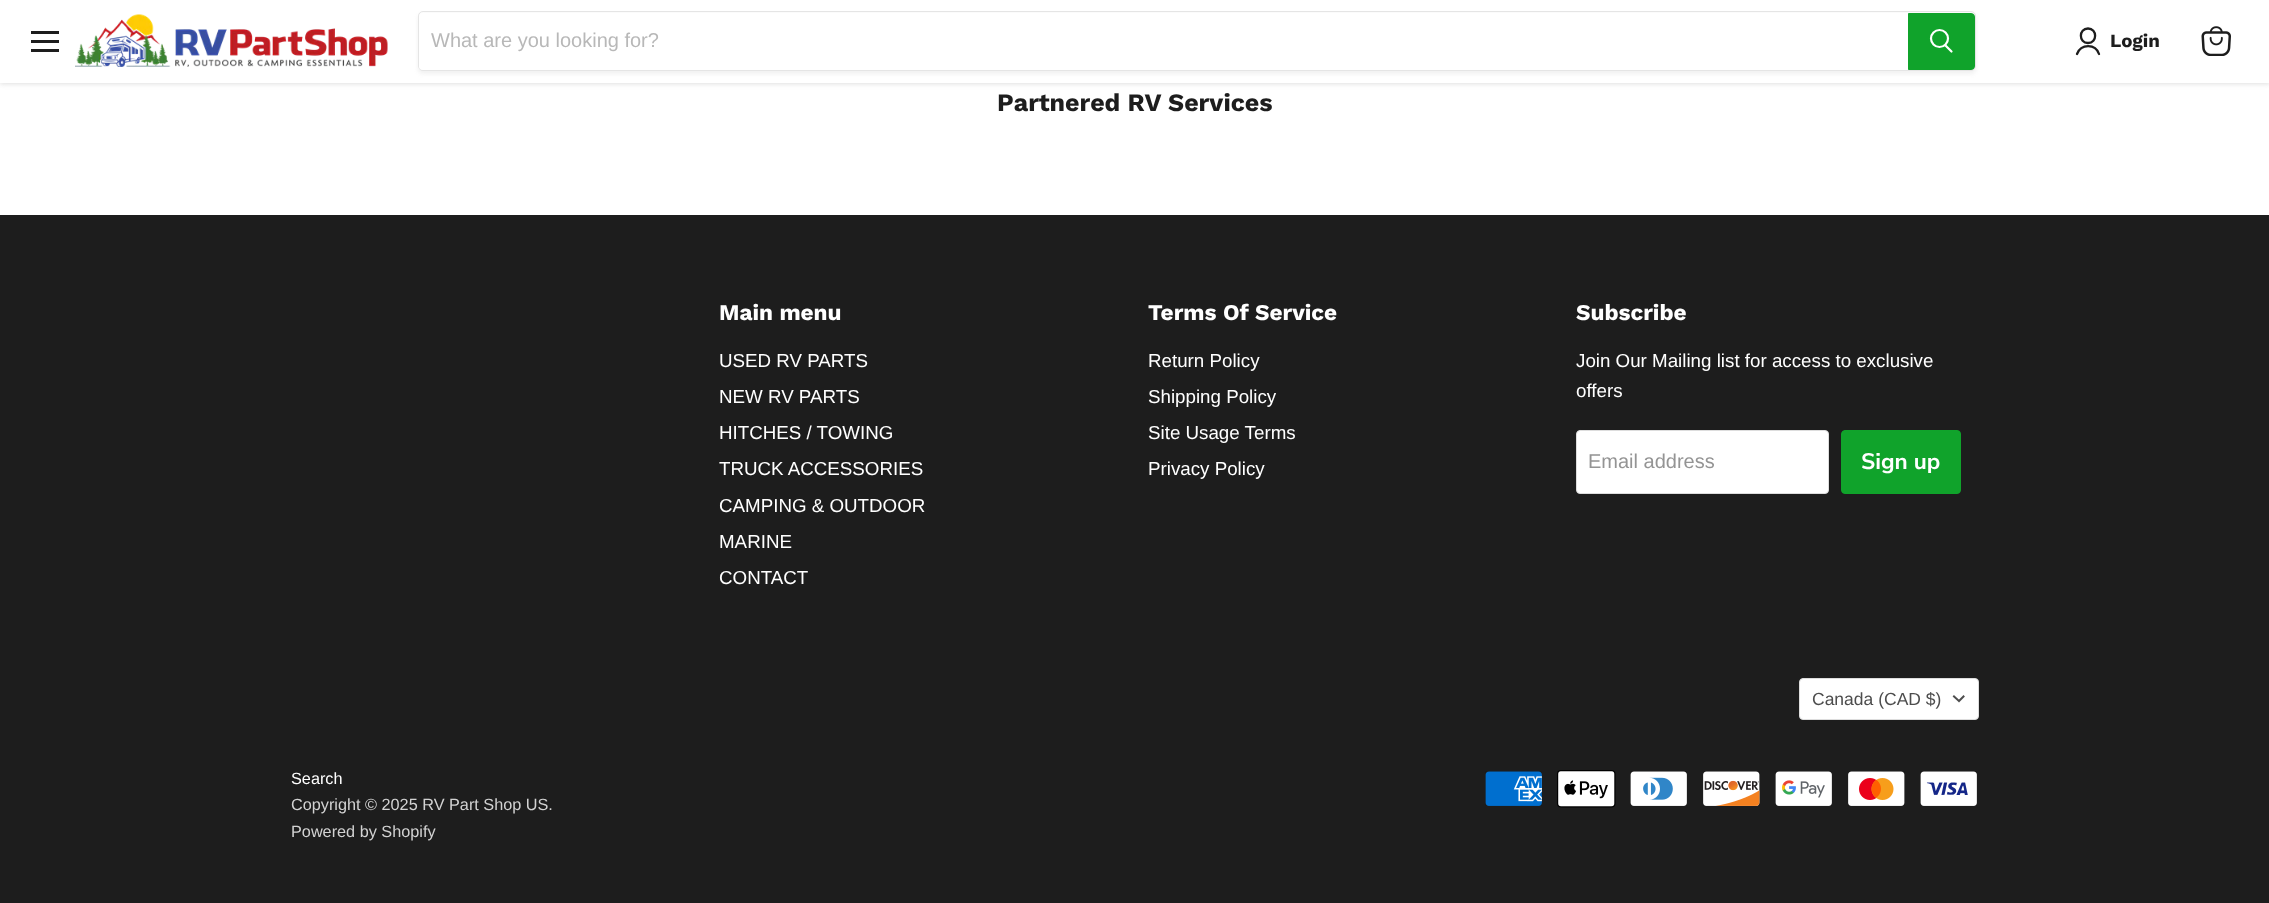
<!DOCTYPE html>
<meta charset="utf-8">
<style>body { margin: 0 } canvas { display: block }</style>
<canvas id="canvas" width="2269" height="903"></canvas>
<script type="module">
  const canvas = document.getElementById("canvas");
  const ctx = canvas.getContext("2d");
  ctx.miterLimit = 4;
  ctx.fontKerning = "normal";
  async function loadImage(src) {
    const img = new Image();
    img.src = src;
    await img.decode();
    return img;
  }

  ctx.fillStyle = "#ffffff";
  ctx.fillRect(0, 0, 2269, 903);
  ctx.fillStyle = "rgba(128, 128, 128, 0.25)";
  ctx.filter = "blur(2.5px)";
  ctx.beginPath();
  ctx.rect(0, 1, 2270, 83);
  ctx.fill();
  ctx.filter = "none";
  ctx.fillStyle = "#ffffff";
  ctx.fillRect(0, 0, 2269, 83);
  ctx.fillStyle = "#1d1d1d";
  ctx.fillRect(31, 31, 28, 3);
  ctx.fillRect(31, 40, 28, 3);
  ctx.fillRect(31, 49, 28, 3);
  ctx.drawImage(await loadImage("img1.png"), 75, 14, 313, 53);
  ctx.fillStyle = "rgba(128, 128, 128, 0.11)";
  ctx.filter = "blur(2px)";
  ctx.beginPath();
  ctx.roundRect(418, 14, 1558, 60, 5);
  ctx.fill();
  ctx.filter = "none";
  ctx.beginPath();
  ctx.roundRect(418.5, 11.5, 1557, 59, 4.5);
  ctx.strokeStyle = "#e5e5e5";
  ctx.stroke();
  ctx.fillStyle = "#ffffff";
  ctx.beginPath();
  ctx.roundRect(419, 13, 1489, 57, [4, 0, 0, 4]);
  ctx.fill();
  ctx.font = "20px Liberation Sans";
  ctx.fillStyle = "#b8b8b8";
  ctx.fillText("What are you looking for?", 431, 47);
  ctx.fillStyle = "#10a32b";
  ctx.beginPath();
  ctx.roundRect(1908.5, 13.5, 66, 56, [0, 3.5, 3.5, 0]);
  ctx.fill();
  ctx.strokeStyle = "#10a32b";
  ctx.stroke();
  ctx.beginPath();
  ctx.moveTo(1951.5, 51.5);
  ctx.lineTo(1945.5, 45.5);
  ctx.strokeStyle = "#ffffff";
  ctx.lineWidth = 2.2;
  ctx.lineCap = "round";
  ctx.stroke();
  ctx.beginPath();
  ctx.arc(1939.5, 38.5, 8.5, 0, Math.PI * 2);
  ctx.stroke();
  ctx.beginPath();
  ctx.moveTo(2088, 43);
  ctx.bezierCurveTo(2097.5, 43, 2097.5, 28.5, 2088, 28.5);
  ctx.bezierCurveTo(2078.5, 28.5, 2078.5, 43, 2088, 43);
  ctx.closePath();
  ctx.moveTo(2099, 54);
  ctx.bezierCurveTo(2095.5, 43.5, 2081, 43.5, 2077, 54);
  ctx.strokeStyle = "#1d1d1d";
  ctx.lineWidth = 2.3;
  ctx.lineJoin = "round";
  ctx.stroke();
  ctx.font = "bold 18.75px Work Sans";
  ctx.fillStyle = "#1d1d1d";
  ctx.fillText("Login", 2110, 47);
  ctx.drawImage(await loadImage("img2.png"), 2201, 26, 30, 30);
  ctx.font = "bold 25px Work Sans";
  ctx.fillText("Partnered RV Services", 997, 111);
  ctx.fillRect(0, 215, 2269, 688);
  ctx.font = "bold 22.5px Work Sans";
  ctx.fillStyle = "#ffffff";
  ctx.fillText("Main menu", 719, 320);
  ctx.font = "18.75px Liberation Sans";
  ctx.fillText("USED RV PARTS", 719, 367);
  ctx.fillText("NEW RV PARTS", 719, 403);
  ctx.fillText("HITCHES / TOWING", 719, 439);
  ctx.fillText("TRUCK ACCESSORIES", 719, 475);
  ctx.fillText("CAMPING & OUTDOOR", 719, 512);
  ctx.fillText("MARINE", 719, 548);
  ctx.fillText("CONTACT", 719, 584);
  ctx.font = "bold 22.5px Work Sans";
  ctx.fillText("Terms Of Service", 1148, 320);
  ctx.font = "18.75px Liberation Sans";
  ctx.fillText("Return Policy", 1148, 367);
  ctx.fillText("Shipping Policy", 1148, 403);
  ctx.fillText("Site Usage Terms", 1148, 439);
  ctx.fillText("Privacy Policy", 1148, 475);
  ctx.font = "bold 22.5px Work Sans";
  ctx.fillText("Subscribe", 1576, 320);
  ctx.font = "18.75px Liberation Sans";
  ctx.fillText("Join Our Mailing list for access to exclusive", 1576, 367);
  ctx.fillText("offers", 1576, 397);
  ctx.beginPath();
  ctx.roundRect(1576.5, 430.5, 252, 63, 3.5);
  ctx.fill();
  ctx.strokeStyle = "#dddddd";
  ctx.lineWidth = 1;
  ctx.lineJoin = "miter";
  ctx.stroke();
  ctx.font = "20px Liberation Sans";
  ctx.fillStyle = "#949494";
  ctx.fillText("Email address", 1588, 468);
  ctx.fillStyle = "#10a32b";
  ctx.beginPath();
  ctx.roundRect(1841.5, 430.5, 119, 63, 3.5);
  ctx.fill();
  ctx.strokeStyle = "#10a32b";
  ctx.stroke();
  ctx.font = "bold 22.5px Nunito Sans";
  ctx.fillStyle = "#ffffff";
  ctx.fillText("Sign up", 1861, 469);
  ctx.beginPath();
  ctx.roundRect(1799.5, 678.5, 179, 41, 3.5);
  ctx.fill();
  ctx.strokeStyle = "#dddddd";
  ctx.stroke();
  ctx.font = "17.5px Liberation Sans";
  ctx.fillStyle = "#4d4d4d";
  ctx.fillText("Canada (CAD $)", 1812, 705);
  ctx.beginPath();
  ctx.moveTo(1959, 701);
  ctx.lineTo(1963.5, 696.5);
  ctx.moveTo(1959, 701);
  ctx.lineTo(1954, 696.5);
  ctx.strokeStyle = "#4d4d4d";
  ctx.lineWidth = 2;
  ctx.lineCap = "square";
  ctx.stroke();
  ctx.font = "16.25px Liberation Sans";
  ctx.fillStyle = "#ffffff";
  ctx.fillText("Search", 291, 784);
  ctx.fillStyle = "#d2d2d2";
  ctx.fillText("Copyright © 2025 RV Part Shop US.", 291, 810);
  ctx.fillText("Powered by Shopify", 291, 837);
  ctx.drawImage(await loadImage("img3.png"), 1485, 771, 57, 35);
  ctx.drawImage(await loadImage("img4.png"), 1557, 770, 59, 38);
  ctx.drawImage(await loadImage("img5.png"), 1630, 771, 57, 35);
  ctx.drawImage(await loadImage("img6.png"), 1703, 771, 57, 35);
  ctx.drawImage(await loadImage("img7.png"), 1775, 771, 57, 35);
  ctx.drawImage(await loadImage("img8.png"), 1848, 771, 57, 35);
  ctx.drawImage(await loadImage("img9.png"), 1920, 771, 57, 35);
</script>
